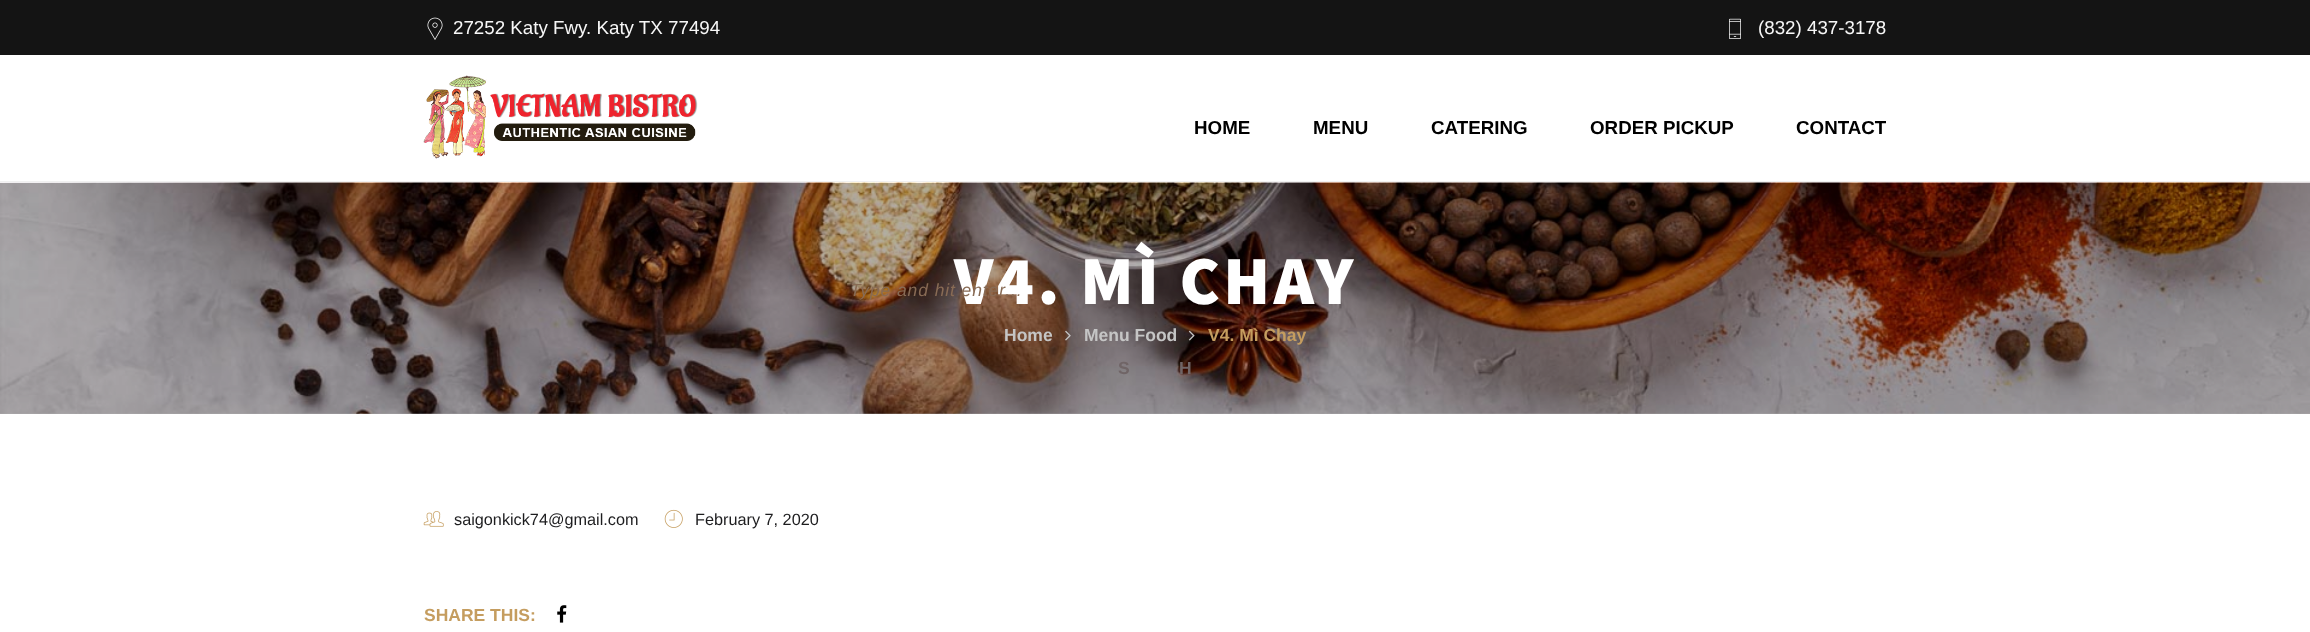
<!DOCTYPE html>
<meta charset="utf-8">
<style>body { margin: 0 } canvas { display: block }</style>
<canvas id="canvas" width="2310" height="632"></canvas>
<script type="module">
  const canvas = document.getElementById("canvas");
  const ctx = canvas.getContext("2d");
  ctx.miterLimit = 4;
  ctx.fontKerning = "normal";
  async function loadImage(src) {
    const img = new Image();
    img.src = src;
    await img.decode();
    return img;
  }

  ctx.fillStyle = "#ffffff";
  ctx.fillRect(0, 0, 2310, 632);
  ctx.fillStyle = "#141414";
  ctx.fillRect(0, 0, 2310, 55);
  ctx.drawImage(await loadImage("img1.png"), 427, 17, 16, 23);
  ctx.font = "18.75px Liberation Sans";
  ctx.fillStyle = "#f7f7f7";
  ctx.fillText("27252 Katy Fwy. Katy TX 77494", 453, 34);
  ctx.drawImage(await loadImage("img2.png"), 1729, 18, 12, 21);
  ctx.fillText("(832) 437-3178", 1758, 34);
  ctx.fillStyle = "#f1f1f1";
  ctx.fillRect(0, 181, 2310, 1);
  ctx.drawImage(await loadImage("img3.png"), 423, 75, 275, 84);
  ctx.font = "bold 18.75px Liberation Sans";
  ctx.fillStyle = "#000000";
  ctx.fillText("HOME", 1194, 134);
  ctx.fillText("MENU", 1313, 134);
  ctx.fillText("CATERING", 1431, 134);
  ctx.fillText("ORDER PICKUP", 1590, 134);
  ctx.fillText("CONTACT", 1796, 134);
  ctx.drawImage(await loadImage("img4.png"), 0, 182, 2310, 232);
  ctx.fillStyle = "rgba(0, 0, 0, 0.3)";
  ctx.fillRect(0, 183, 2310, 231);
  ctx.letterSpacing = "3.5px";
  ctx.font = "900 68.75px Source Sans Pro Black";
  ctx.fillStyle = "#ffffff";
  ctx.fillText("V4. MÌ CHAY", 954, 304);
  ctx.letterSpacing = "0px";
  ctx.font = "bold 17.5px Liberation Sans";
  ctx.fillStyle = "#c5c5c5";
  ctx.fillText("Home", 1004, 341);
  ctx.drawImage(await loadImage("img5.png"), 1065, 330, 6, 11);
  ctx.fillText("Menu Food", 1084, 341);
  ctx.drawImage(await loadImage("img6.png"), 1188, 330, 7, 11);
  ctx.fillStyle = "#c59d5f";
  ctx.fillText("V4. Mì Chay", 1208, 341);
  ctx.drawImage(await loadImage("img7.png"), 423, 511, 21, 16);
  ctx.font = "16.25px Liberation Sans";
  ctx.fillStyle = "#1d1d1f";
  ctx.fillText("saigonkick74@gmail.com", 454, 525);
  ctx.drawImage(await loadImage("img8.png"), 664, 509, 19, 19);
  ctx.fillText("February 7, 2020", 695, 525);
  ctx.font = "bold 17.5px Liberation Sans";
  ctx.fillStyle = "#c59d5f";
  ctx.fillText("SHARE THIS:", 424, 621);
  ctx.drawImage(await loadImage("img9.png"), 557, 605, 10, 18);
  ctx.letterSpacing = "0.9px";
  ctx.font = "italic 17.5px Liberation Sans";
  ctx.fillStyle = "#886b55";
  ctx.fillText("Type and hit enter...", 850, 296);
  ctx.letterSpacing = "0px";
  ctx.font = "bold 17.5px Liberation Sans";
  ctx.fillStyle = "#706566";
  ctx.fillText("S", 1118, 374);
  ctx.fillText("H", 1179, 374);
</script>
